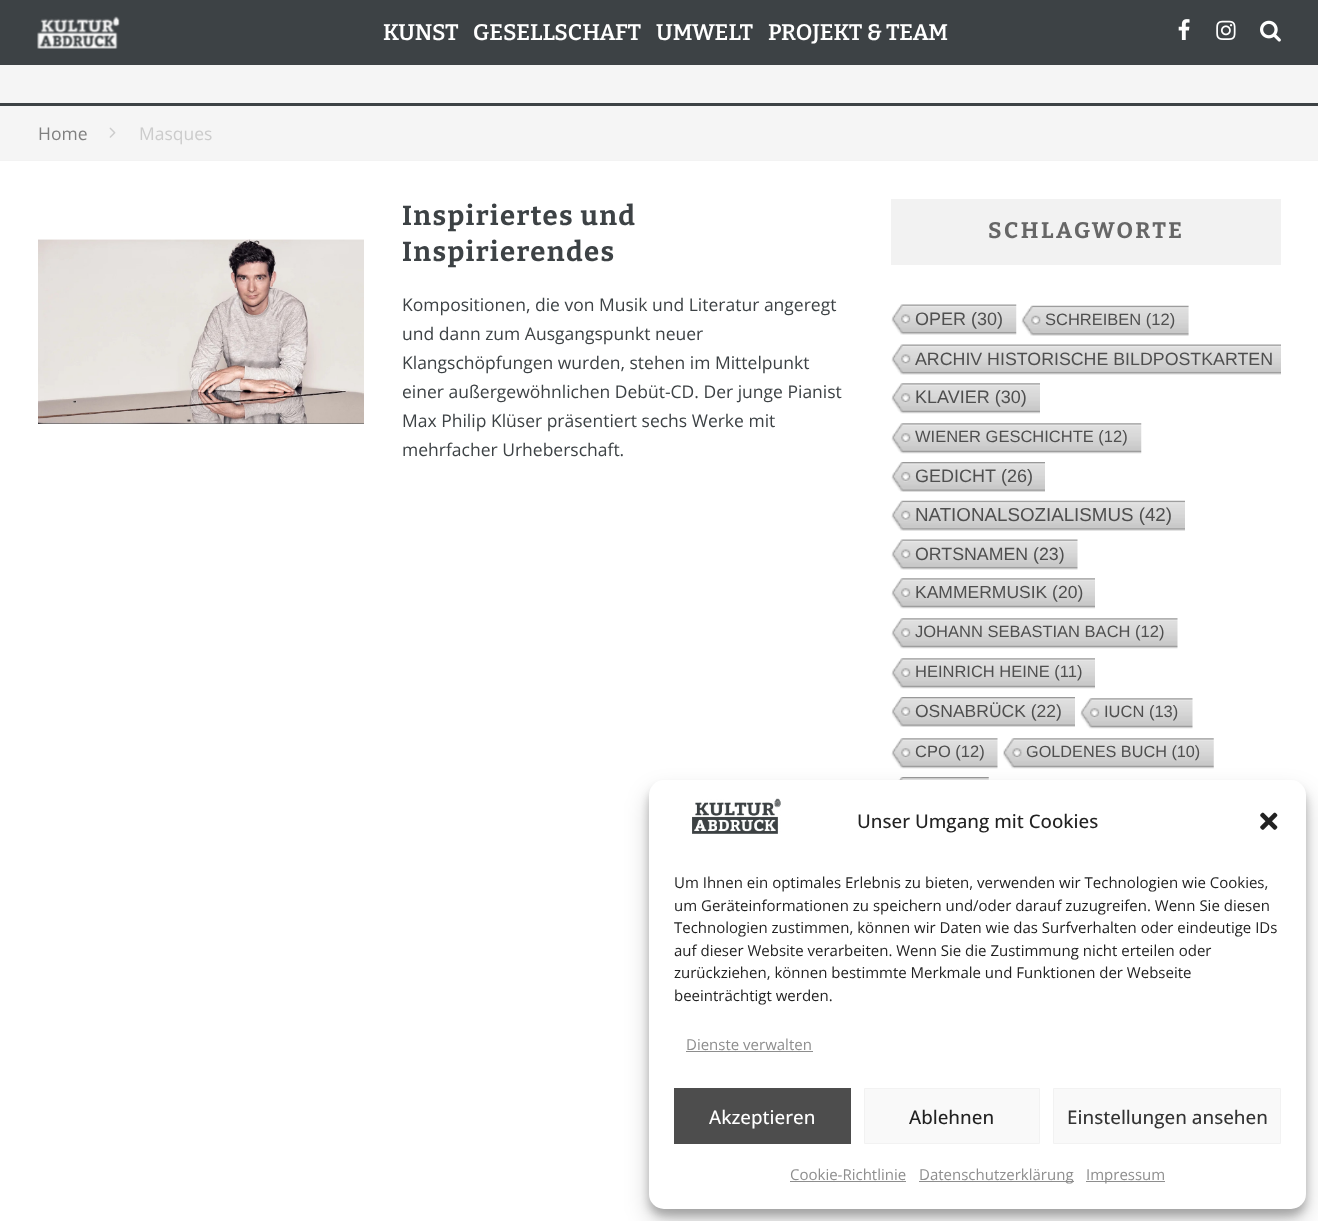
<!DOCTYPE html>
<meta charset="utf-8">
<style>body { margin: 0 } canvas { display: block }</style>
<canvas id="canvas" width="1318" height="1221"></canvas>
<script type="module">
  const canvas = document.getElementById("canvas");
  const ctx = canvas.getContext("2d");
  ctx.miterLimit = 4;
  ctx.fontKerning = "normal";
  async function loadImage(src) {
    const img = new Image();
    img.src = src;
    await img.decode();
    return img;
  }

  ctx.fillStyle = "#ffffff";
  ctx.fillRect(0, 0, 1318, 1221);
  ctx.fillStyle = "#3d4245";
  ctx.fillRect(0, 0, 1318, 65);
  ctx.drawImage(await loadImage("img1.png"), 37, 16, 83, 33);
  ctx.font = "100 22.5px 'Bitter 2'";
  ctx.fillStyle = "#ffffff";
  ctx.fillText("KUNST", 383, 40);
  ctx.fillText("GESELLSCHAFT", 473, 40);
  ctx.fillText("UMWELT", 656, 40);
  ctx.fillText("PROJEKT & TEAM", 768, 40);
  ctx.drawImage(await loadImage("img2.png"), 1178, 19, 12, 21);
  ctx.drawImage(await loadImage("img3.png"), 1216, 20, 20, 20);
  ctx.drawImage(await loadImage("img4.png"), 1260, 20, 21, 22);
  ctx.fillStyle = "#f5f5f5";
  ctx.fillRect(0, 65, 1318, 38);
  ctx.fillStyle = "#3d4245";
  ctx.fillRect(0, 103, 1318, 3);
  ctx.fillStyle = "#f5f5f5";
  ctx.fillRect(0, 106, 1318, 54);
  ctx.fillStyle = "#f3f3f3";
  ctx.fillRect(0, 160, 1318, 1);
  ctx.font = "17.5px Open Sans";
  ctx.fillStyle = "#808080";
  ctx.fillText("Home", 38, 140);
  ctx.drawImage(await loadImage("img5.png"), 109, 127, 7, 11);
  ctx.fillStyle = "#cccccc";
  ctx.fillText("Masques", 139, 140);
  ctx.fillStyle = "#3d4245";
  ctx.fillRect(38, 423, 326, 1);
  ctx.drawImage(await loadImage("img6.png"), 38, 239, 326, 185);
  ctx.letterSpacing = "1.4px";
  ctx.font = "100 27.5px Bitter";
  ctx.fillText("Inspiriertes und", 402, 225);
  ctx.fillText("Inspirierendes", 402, 261);
  ctx.letterSpacing = "0px";
  ctx.font = "17.5px Open Sans";
  ctx.fillText("Kompositionen, die von Musik und Literatur angeregt", 402, 311);
  ctx.fillText("und dann zum Ausgangspunkt neuer", 402, 340);
  ctx.fillText("Klangschöpfungen wurden, stehen im Mittelpunkt", 402, 369);
  ctx.fillText("einer außergewöhnlichen Debüt-CD. Der junge Pianist", 402, 398);
  ctx.fillText("Max Philip Klüser präsentiert sechs Werke mit", 402, 427);
  ctx.fillText("mehrfacher Urheberschaft.", 402, 456);
  ctx.fillStyle = "#f2f2f2";
  ctx.fillRect(891, 199, 390, 66);
  ctx.letterSpacing = "2.5px";
  ctx.font = "100 22.5px Bitter";
  ctx.fillStyle = "#666666";
  ctx.fillText("SCHLAGWORTE", 988, 238);
  ctx.drawImage(await loadImage("img7.png"), 891, 304, 126, 31);
  ctx.letterSpacing = "0px";
  ctx.font = "18px Liberation Sans";
  ctx.fillStyle = "#4f4f4f";
  ctx.fillText("OPER (30)", 915, 325);
  ctx.drawImage(await loadImage("img8.png"), 1021, 305, 168, 31);
  ctx.font = "16.5px Liberation Sans";
  ctx.fillText("SCHREIBEN (12)", 1045, 325);
  ctx.drawImage(await loadImage("img9.png"), 891, 344, 390, 31);
  ctx.font = "17.8px Liberation Sans";
  ctx.fillText("ARCHIV HISTORISCHE BILDPOSTKARTEN", 915, 365);
  ctx.drawImage(await loadImage("img10.png"), 891, 383, 149, 31);
  ctx.font = "18px Liberation Sans";
  ctx.fillText("KLAVIER (30)", 915, 403);
  ctx.drawImage(await loadImage("img11.png"), 891, 423, 251, 31);
  ctx.font = "16.5px Liberation Sans";
  ctx.fillText("WIENER GESCHICHTE (12)", 915, 442);
  ctx.drawImage(await loadImage("img12.png"), 891, 462, 154, 30);
  ctx.font = "18px Liberation Sans";
  ctx.fillText("GEDICHT", 915, 482);
  ctx.fillText("(26)", 1001, 482);
  ctx.drawImage(await loadImage("img13.png"), 891, 500, 294, 31);
  ctx.font = "18.75px Liberation Sans";
  ctx.fillText("NATIONALSOZIALISMUS (42)", 915, 521);
  ctx.drawImage(await loadImage("img14.png"), 891, 539, 187, 31);
  ctx.font = "17.75px Liberation Sans";
  ctx.fillText("ORTSNAMEN (23)", 915, 560);
  ctx.drawImage(await loadImage("img15.png"), 891, 578, 204, 31);
  ctx.font = "17.5px Liberation Sans";
  ctx.fillText("KAMMERMUSIK (20)", 915, 598);
  ctx.drawImage(await loadImage("img16.png"), 891, 618, 287, 31);
  ctx.font = "16.5px Liberation Sans";
  ctx.fillText("JOHANN SEBASTIAN BACH (12)", 915, 637);
  ctx.drawImage(await loadImage("img17.png"), 891, 658, 204, 31);
  ctx.fillText("HEINRICH HEINE (11)", 915, 677);
  ctx.drawImage(await loadImage("img18.png"), 891, 697, 184, 30);
  ctx.font = "17.5px Liberation Sans";
  ctx.fillText("OSNABRÜCK (22)", 915, 717);
  ctx.drawImage(await loadImage("img19.png"), 1080, 698, 113, 31);
  ctx.font = "16.5px Liberation Sans";
  ctx.fillText("IUCN (13)", 1104, 717);
  ctx.drawImage(await loadImage("img20.png"), 891, 738, 107, 31);
  ctx.fillText("CPO (12)", 915, 757);
  ctx.drawImage(await loadImage("img21.png"), 1003, 738, 211, 31);
  ctx.font = "16.25px Liberation Sans";
  ctx.fillText("GOLDENES BUCH (10)", 1026, 757);
  ctx.drawImage(await loadImage("img22.png"), 898, 777, 91, 3);
  ctx.fillStyle = "rgba(0, 0, 0, 0.23)";
  ctx.filter = "blur(4px)";
  ctx.beginPath();
  ctx.roundRect(649, 788, 657, 428, 15);
  ctx.fill();
  ctx.filter = "none";
  ctx.fillStyle = "rgba(0, 0, 0, 0.19)";
  ctx.filter = "blur(12.5px)";
  ctx.beginPath();
  ctx.roundRect(649, 793, 657, 428, 15);
  ctx.fill();
  ctx.filter = "none";
  ctx.fillStyle = "#ffffff";
  ctx.beginPath();
  ctx.roundRect(649, 780, 657, 429, 15);
  ctx.fill();
  ctx.drawImage(await loadImage("img23.png"), 692, 798, 89, 36);
  ctx.font = "500 18.75px Open Sans";
  ctx.fillStyle = "#222222";
  ctx.fillText("Unser Umgang mit Cookies", 857, 828);
  ctx.drawImage(await loadImage("img24.png"), 1260, 812, 18, 18);
  ctx.font = "15px Open Sans";
  ctx.fillText("Um Ihnen ein optimales Erlebnis zu bieten, verwenden wir Technologien wie Cookies,", 674, 888);
  ctx.fillText("um Geräteinformationen zu speichern und/oder darauf zuzugreifen. Wenn Sie diesen", 674, 911);
  ctx.fillText("Technologien zustimmen, können wir Daten wie das Surfverhalten oder eindeutige IDs", 674, 933);
  ctx.fillText("auf dieser Website verarbeiten. Wenn Sie die Zustimmung nicht erteilen oder", 674, 956);
  ctx.fillText("zurückziehen, können bestimmte Merkmale und Funktionen der Webseite", 674, 978);
  ctx.fillText("beeinträchtigt werden.", 674, 1001);
  ctx.fillStyle = "#8e8e8e";
  ctx.fillText("Dienste verwalten", 686, 1050);
  ctx.fillRect(686, 1051, 127, 1);
  ctx.fillStyle = "#4d4d4d";
  ctx.fillRect(674, 1088, 177, 56);
  ctx.font = "500 18.75px Open Sans";
  ctx.fillStyle = "#ffffff";
  ctx.fillText("Akzeptieren", 709, 1124);
  ctx.fillStyle = "#f9f9f9";
  ctx.beginPath();
  ctx.rect(864.5, 1088.5, 175, 55);
  ctx.fill();
  ctx.strokeStyle = "#f2f2f2";
  ctx.stroke();
  ctx.fillStyle = "#222222";
  ctx.fillText("Ablehnen", 909, 1124);
  ctx.fillStyle = "#f9f9f9";
  ctx.beginPath();
  ctx.rect(1053.5, 1088.5, 227, 55);
  ctx.fill();
  ctx.stroke();
  ctx.fillStyle = "#333333";
  ctx.fillText("Einstellungen ansehen", 1067, 1124);
  ctx.font = "15px Open Sans";
  ctx.fillStyle = "#8e8e8e";
  ctx.fillText("Cookie-Richtlinie", 790, 1180);
  ctx.fillRect(790, 1181, 116, 1);
  ctx.fillRect(919, 1181, 155, 1);
  ctx.fillText("Datenschutzerklärung", 919, 1180);
  ctx.fillRect(1086, 1181, 79, 1);
  ctx.fillText("Impressum", 1086, 1180);
</script>
